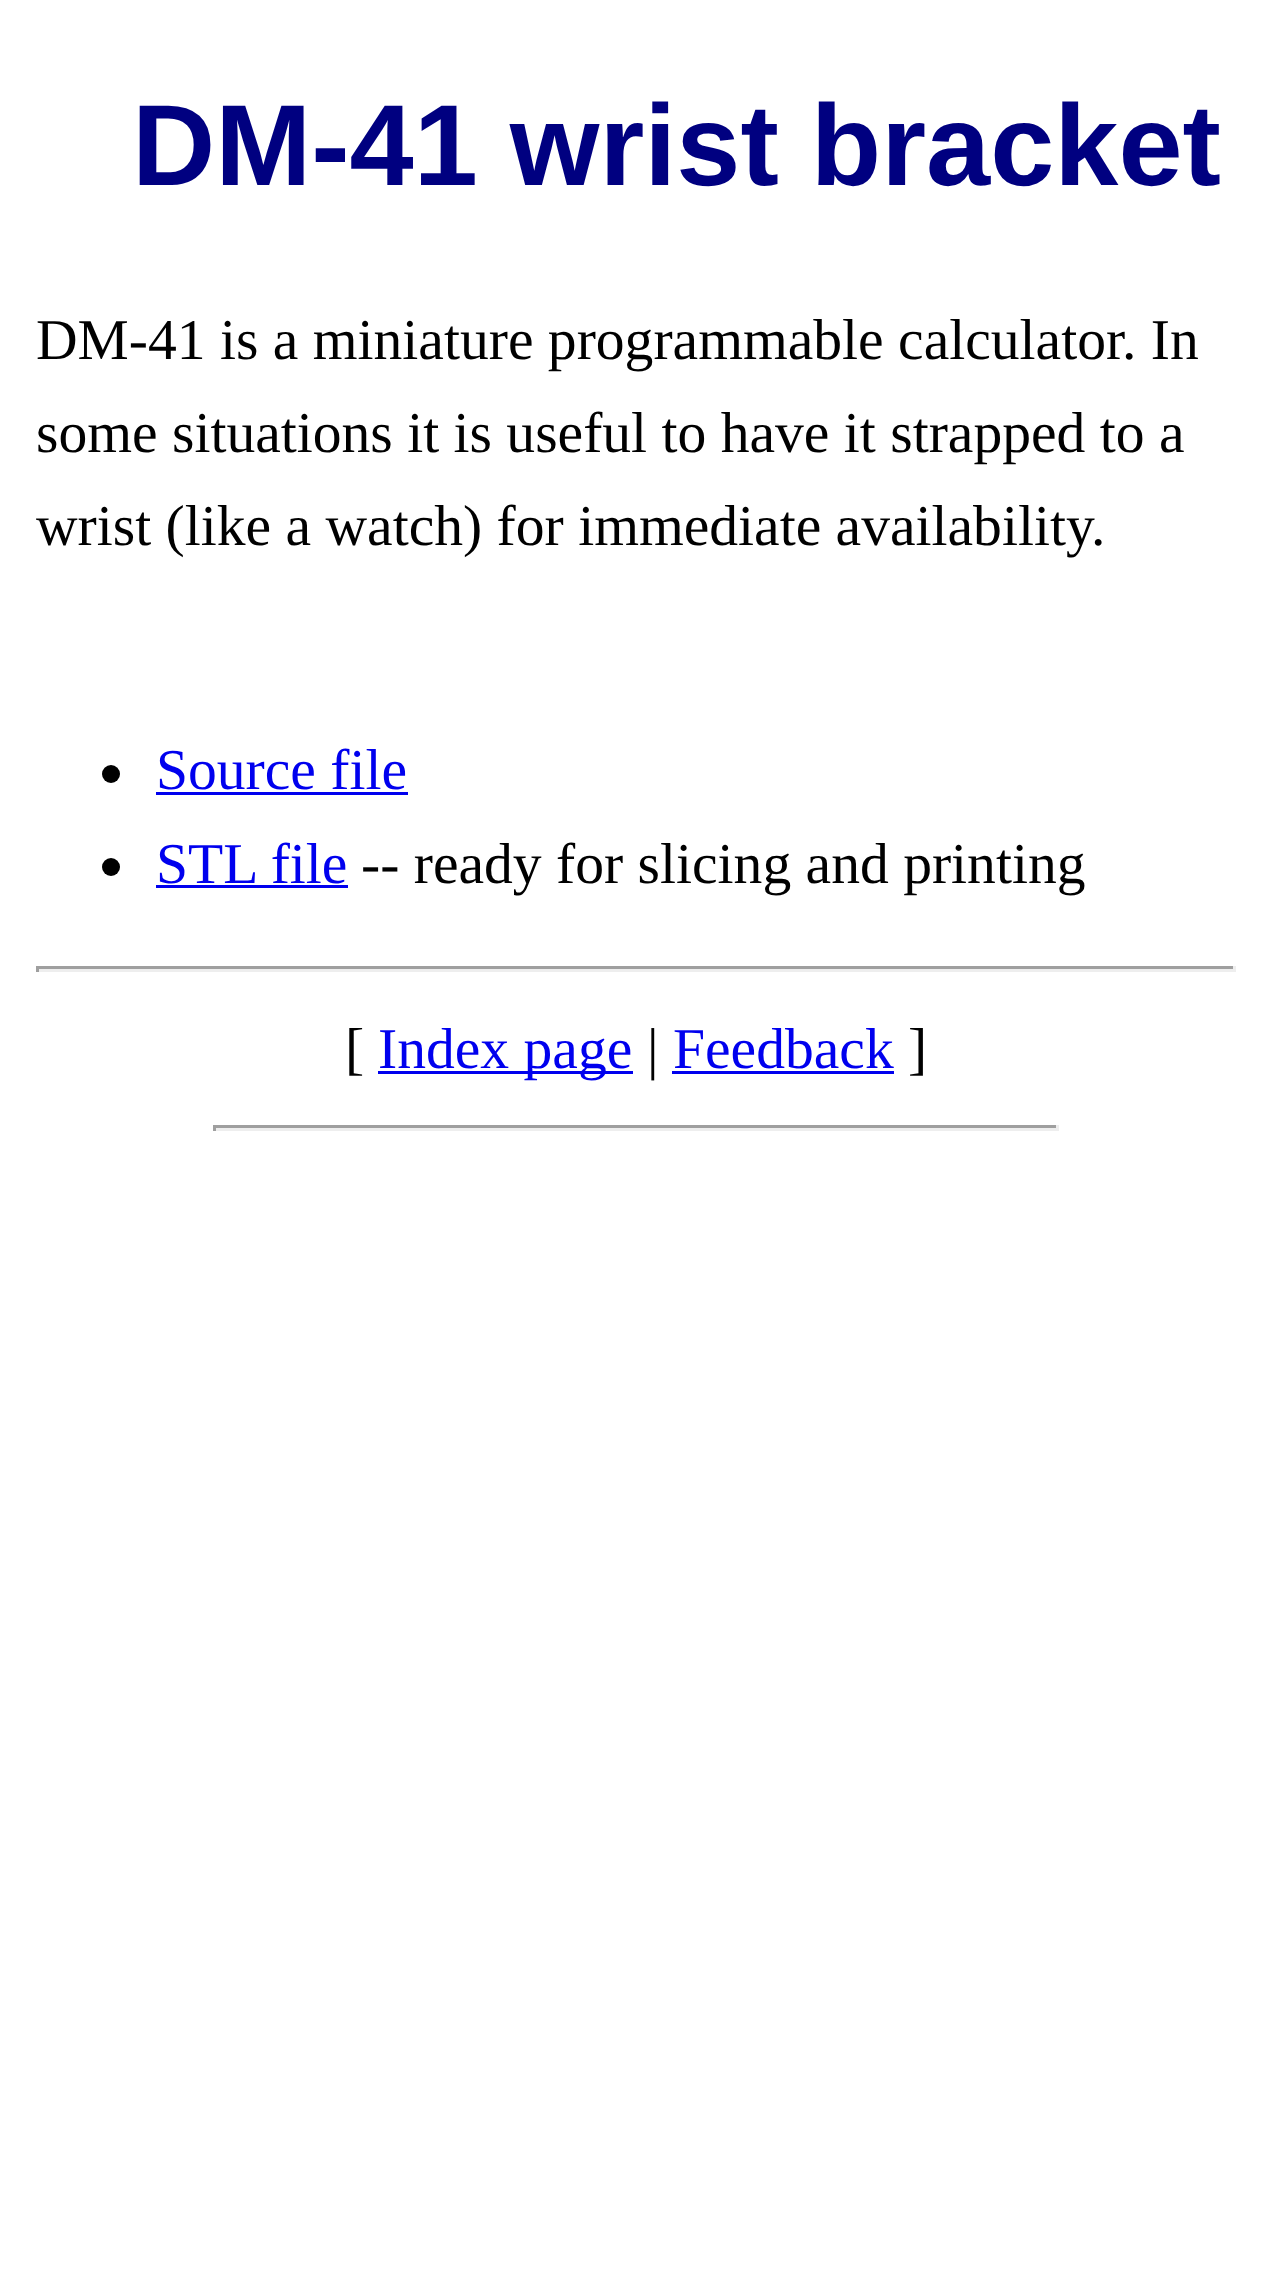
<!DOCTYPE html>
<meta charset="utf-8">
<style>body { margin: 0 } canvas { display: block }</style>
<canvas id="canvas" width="1270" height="2281"></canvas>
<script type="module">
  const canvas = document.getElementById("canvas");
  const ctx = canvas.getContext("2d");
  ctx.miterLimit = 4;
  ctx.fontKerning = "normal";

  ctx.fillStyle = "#ffffff";
  ctx.fillRect(0, 0, 1270, 2281);
  ctx.font = "bold 115.25px Liberation Sans";
  ctx.fillStyle = "#000080";
  ctx.fillText("DM-41 wrist bracket", 132, 185);
  ctx.font = "57.6px Liberation Serif";
  ctx.fillStyle = "#000000";
  ctx.fillText("DM-41 is a miniature programmable calculator. In", 36, 359);
  ctx.fillText("some situations it is useful to have it strapped to a", 36, 452);
  ctx.fillText("wrist (like a watch) for immediate availability.", 36, 545);
  ctx.beginPath();
  ctx.arc(111, 774, 9, 0, Math.PI * 2);
  ctx.fill();
  ctx.fillStyle = "#0000ee";
  ctx.fillText("Source file", 156, 789);
  ctx.fillRect(156, 792, 252, 3);
  ctx.fillStyle = "#000000";
  ctx.beginPath();
  ctx.arc(111, 867, 9, 0, Math.PI * 2);
  ctx.fill();
  ctx.fillStyle = "#0000ee";
  ctx.fillText("STL file", 156, 883);
  ctx.fillRect(156, 885, 192, 3);
  ctx.fillStyle = "#000000";
  ctx.fillText("-- ready for slicing and printing", 361, 883);
  ctx.fillStyle = "#9f9f9f";
  ctx.fillRect(36, 966, 1200, 3);
  ctx.fillStyle = "#eeeeee";
  ctx.fillRect(1233, 966, 3, 6);
  ctx.fillRect(36, 969, 1200, 3);
  ctx.fillStyle = "#9f9f9f";
  ctx.fillRect(36, 966, 3, 6);
  ctx.fillStyle = "#000000";
  ctx.fillText("[", 345, 1068);
  ctx.fillStyle = "#0000ee";
  ctx.fillRect(378, 1071, 255, 3);
  ctx.fillText("Index page", 378, 1068);
  ctx.fillStyle = "#000000";
  ctx.fillText("|", 647, 1068);
  ctx.fillStyle = "#0000ee";
  ctx.fillText("Feedback", 673, 1068);
  ctx.fillRect(672, 1071, 222, 3);
  ctx.fillStyle = "#000000";
  ctx.fillText("]", 908, 1068);
  ctx.fillStyle = "#9f9f9f";
  ctx.fillRect(213, 1125, 846, 3);
  ctx.fillStyle = "#eeeeee";
  ctx.fillRect(1056, 1125, 3, 6);
  ctx.fillRect(213, 1128, 846, 3);
  ctx.fillStyle = "#9f9f9f";
  ctx.fillRect(213, 1125, 3, 6);
</script>
